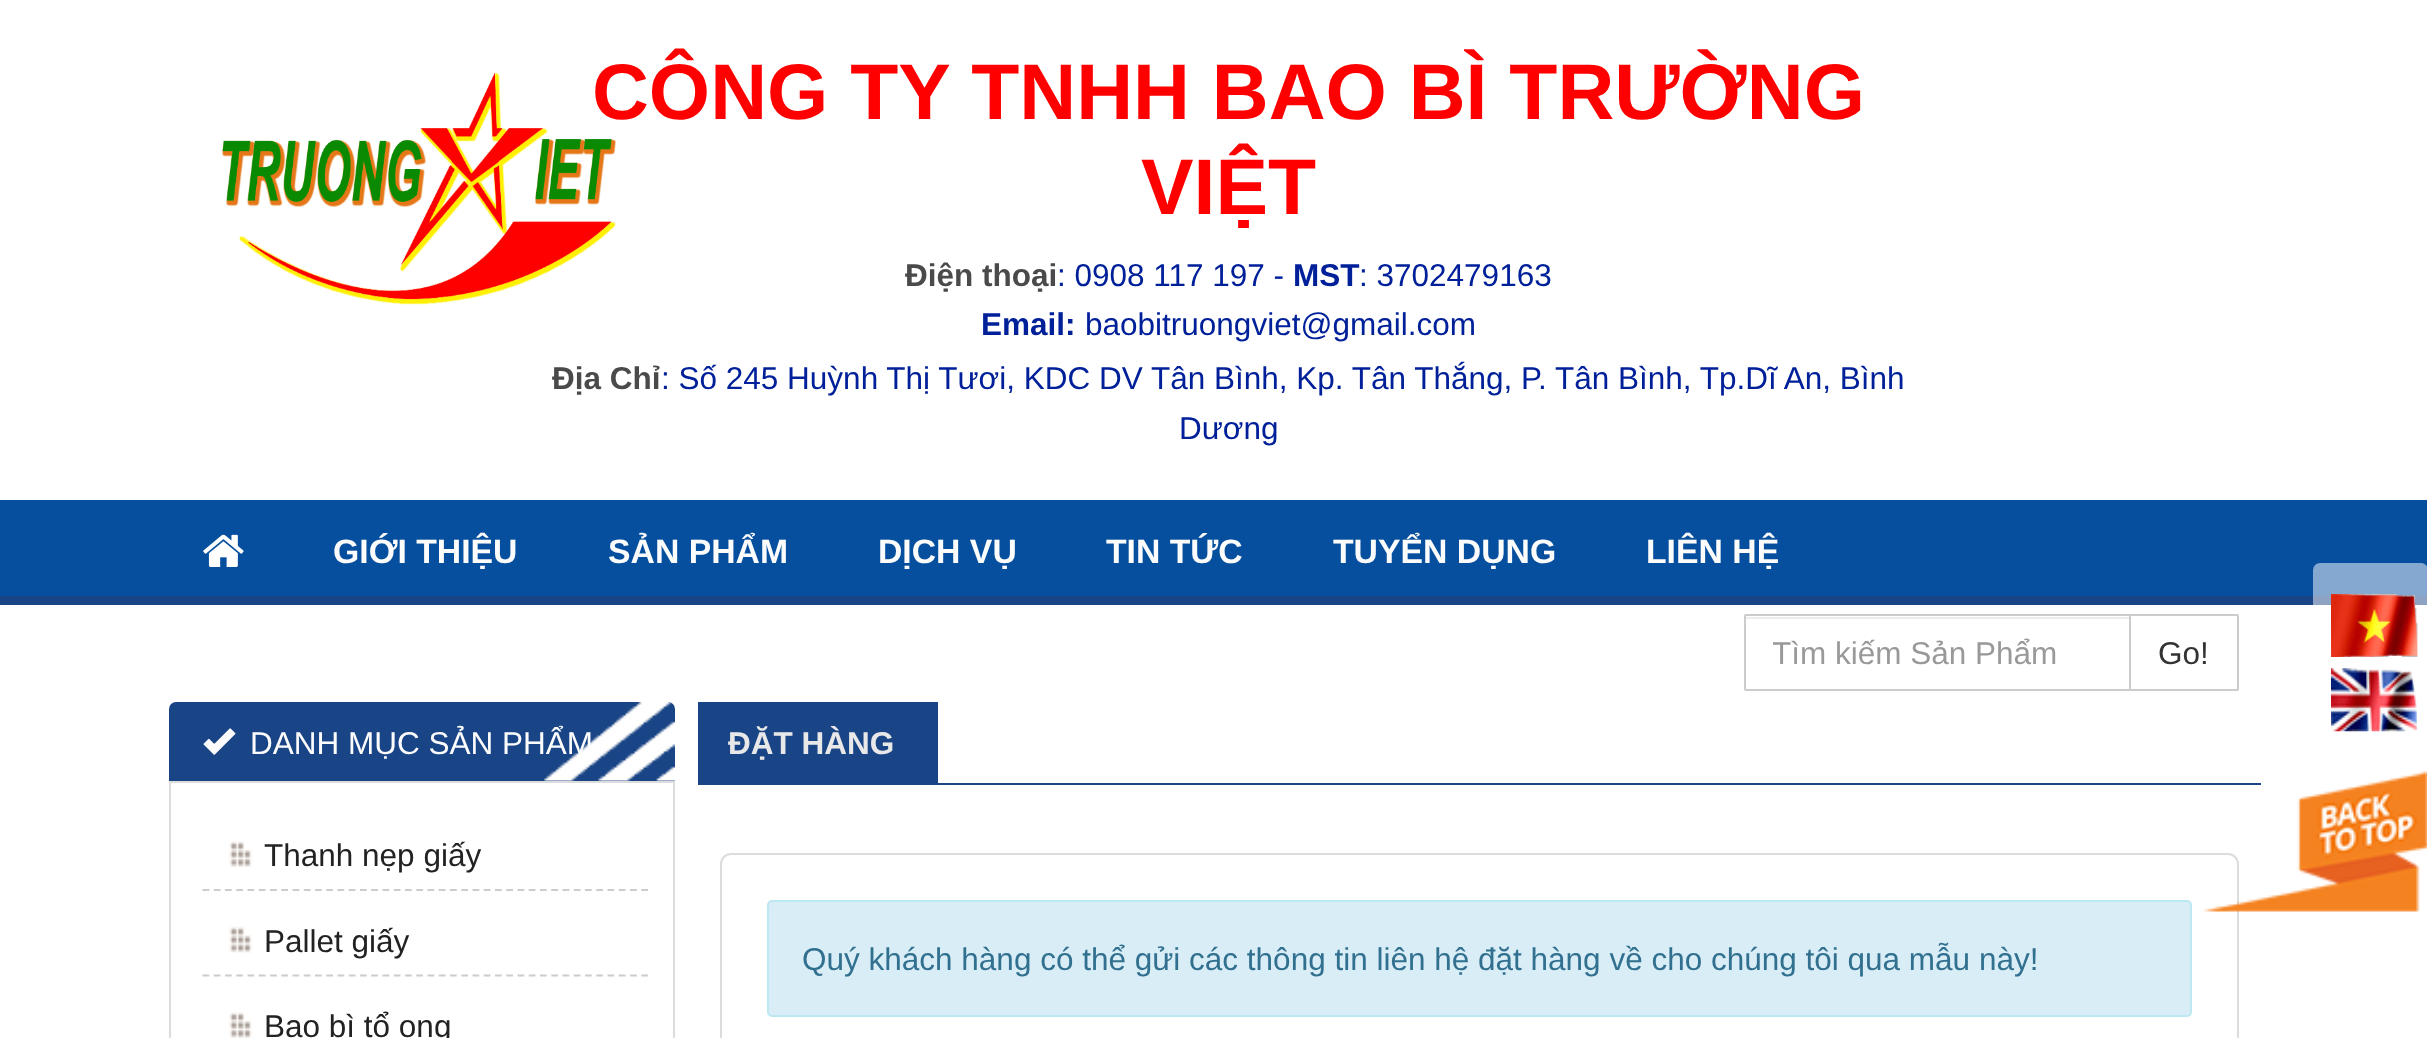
<!DOCTYPE html>
<meta charset="utf-8">
<style>body { margin: 0 } canvas { display: block }</style>
<canvas id="canvas" width="2427" height="1038"></canvas>
<script type="module">
  const canvas = document.getElementById("canvas");
  const ctx = canvas.getContext("2d");
  ctx.miterLimit = 4;
  ctx.fontKerning = "normal";
  async function loadImage(src) {
    const img = new Image();
    img.src = src;
    await img.decode();
    return img;
  }

  ctx.fillStyle = "#ffffff";
  ctx.fillRect(0, 0, 2427, 1038);
  ctx.drawImage(await loadImage("img1.png"), 221, 72, 395, 233);
  ctx.font = "bold 78.75px Liberation Sans";
  ctx.fillStyle = "#ff0000";
  ctx.fillText("CÔNG TY TNHH BAO BÌ TRƯỜNG", 592, 119);
  ctx.fillText("VIỆT", 1141, 214);
  ctx.font = "bold 31.5px Liberation Sans";
  ctx.fillStyle = "#4a4a4a";
  ctx.fillText("Điện thoại", 905, 286);
  ctx.font = "31.5px Liberation Sans";
  ctx.fillStyle = "#00209a";
  ctx.fillText(": 0908 117 197 -", 1057, 286);
  ctx.font = "bold 31.5px Liberation Sans";
  ctx.fillText("MST", 1293, 286);
  ctx.font = "31.5px Liberation Sans";
  ctx.fillText(": 3702479163", 1359, 286);
  ctx.font = "bold 31.5px Liberation Sans";
  ctx.fillText("Email:", 981, 335);
  ctx.font = "31.5px Liberation Sans";
  ctx.fillText("baobitruongviet@gmail.com", 1085, 335);
  ctx.font = "bold 31.5px Liberation Sans";
  ctx.fillStyle = "#4a4a4a";
  ctx.fillText("Địa Chỉ", 552, 389);
  ctx.font = "31.5px Liberation Sans";
  ctx.fillStyle = "#00209a";
  ctx.fillText(": Số 245 Huỳnh Thị Tươi, KDC DV Tân Bình, Kp. Tân Thắng, P. Tân Bình, Tp.Dĩ An, Bình", 661, 389);
  ctx.fillText("Dương", 1179, 439);
  ctx.fillStyle = "#054f9e";
  ctx.fillRect(0, 500, 2427, 96);
  ctx.fillStyle = "#194485";
  ctx.fillRect(0, 596, 2427, 9);
  ctx.drawImage(await loadImage("img2.png"), 203, 534, 41, 33);
  ctx.font = "bold 33.75px Liberation Sans";
  ctx.fillStyle = "#fcfcfc";
  ctx.fillText("GIỚI THIỆU", 333, 563);
  ctx.fillText("SẢN PHẨM", 608, 563);
  ctx.fillText("DỊCH VỤ", 878, 563);
  ctx.fillText("TIN TỨC", 1106, 563);
  ctx.fillText("TUYỂN DỤNG", 1333, 563);
  ctx.fillText("LIÊN HỆ", 1646, 563);
  ctx.fillStyle = "#ececec";
  ctx.fillRect(1746, 617, 383, 2);
  ctx.beginPath();
  ctx.roundRect(1745, 615, 385, 75, [1, 0, 0, 1]);
  ctx.strokeStyle = "#cccccc";
  ctx.lineWidth = 2;
  ctx.stroke();
  ctx.save();
  ctx.beginPath();
  ctx.rect(1773, 635, 329, 36);
  ctx.clip();
  ctx.font = "31.5px Liberation Sans";
  ctx.fillStyle = "#999999";
  ctx.fillText("Tìm kiếm Sản Phẩm", 1772, 664);
  ctx.restore();
  ctx.fillStyle = "#ffffff";
  ctx.beginPath();
  ctx.roundRect(2130, 615, 108, 75, [0, 1, 1, 0]);
  ctx.fill();
  ctx.stroke();
  ctx.font = "31.5px Liberation Sans";
  ctx.fillStyle = "#333333";
  ctx.fillText("Go!", 2158, 664);
  ctx.fillStyle = "rgba(255, 255, 255, 0.51)";
  ctx.beginPath();
  ctx.roundRect(2313, 563, 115, 186, 7);
  ctx.fill();
  ctx.drawImage(await loadImage("img3.png"), 2331, 594, 87, 63);
  ctx.drawImage(await loadImage("img4.png"), 2331, 668, 86, 64);
  ctx.fillStyle = "#194485";
  ctx.beginPath();
  ctx.roundRect(169, 702, 506, 79, [7, 7, 0, 0]);
  ctx.fill();
  ctx.drawImage(await loadImage("img5.png"), 544, 702, 131, 79);
  ctx.drawImage(await loadImage("img6.png"), 203, 728, 33, 27);
  ctx.fillStyle = "#fcfcfc";
  ctx.fillText("DANH MỤC SẢN PHẨM", 250, 754);
  ctx.strokeStyle = "#dcdcdc";
  ctx.strokeRect(170, 782, 504, 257);
  ctx.drawImage(await loadImage("img7.png"), 229, 841, 24, 26);
  ctx.beginPath();
  ctx.moveTo(202.5, 890);
  ctx.lineTo(648, 890);
  ctx.strokeStyle = "#cccccc";
  ctx.lineWidth = 2.2;
  ctx.setLineDash([6.75, 4.5]);
  ctx.stroke();
  ctx.fillStyle = "#222222";
  ctx.fillText("Thanh nẹp giấy", 264, 866);
  ctx.drawImage(await loadImage("img8.png"), 229, 926, 24, 27);
  ctx.beginPath();
  ctx.moveTo(202.5, 975.5);
  ctx.lineTo(648, 975.5);
  ctx.stroke();
  ctx.fillText("Pallet giấy", 264, 952);
  ctx.drawImage(await loadImage("img7.png"), 229, 1012, 24, 26);
  ctx.fillText("Bao bì tổ ong", 264, 1037);
  ctx.fillStyle = "#194485";
  ctx.fillRect(698, 783, 1563, 2);
  ctx.fillRect(698, 702, 240, 81);
  ctx.font = "bold 31.5px Liberation Sans";
  ctx.fillStyle = "#e8e8e8";
  ctx.fillText("ĐẶT HÀNG", 728, 754);
  ctx.beginPath();
  ctx.roundRect(721, 854, 1517, 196, 10);
  ctx.strokeStyle = "#dcdcdc";
  ctx.lineWidth = 2;
  ctx.setLineDash([]);
  ctx.stroke();
  ctx.fillStyle = "#d9edf7";
  ctx.beginPath();
  ctx.roundRect(768, 901, 1423, 115, 4);
  ctx.fill();
  ctx.strokeStyle = "#bce8f1";
  ctx.stroke();
  ctx.font = "31.5px Liberation Sans";
  ctx.fillStyle = "#31708f";
  ctx.fillText("Quý khách hàng có thể gửi các thông tin liên hệ đặt hàng về cho chúng tôi qua mẫu này!", 802, 970);
  ctx.drawImage(await loadImage("img9.png"), 2203, 771, 224, 141);
</script>
